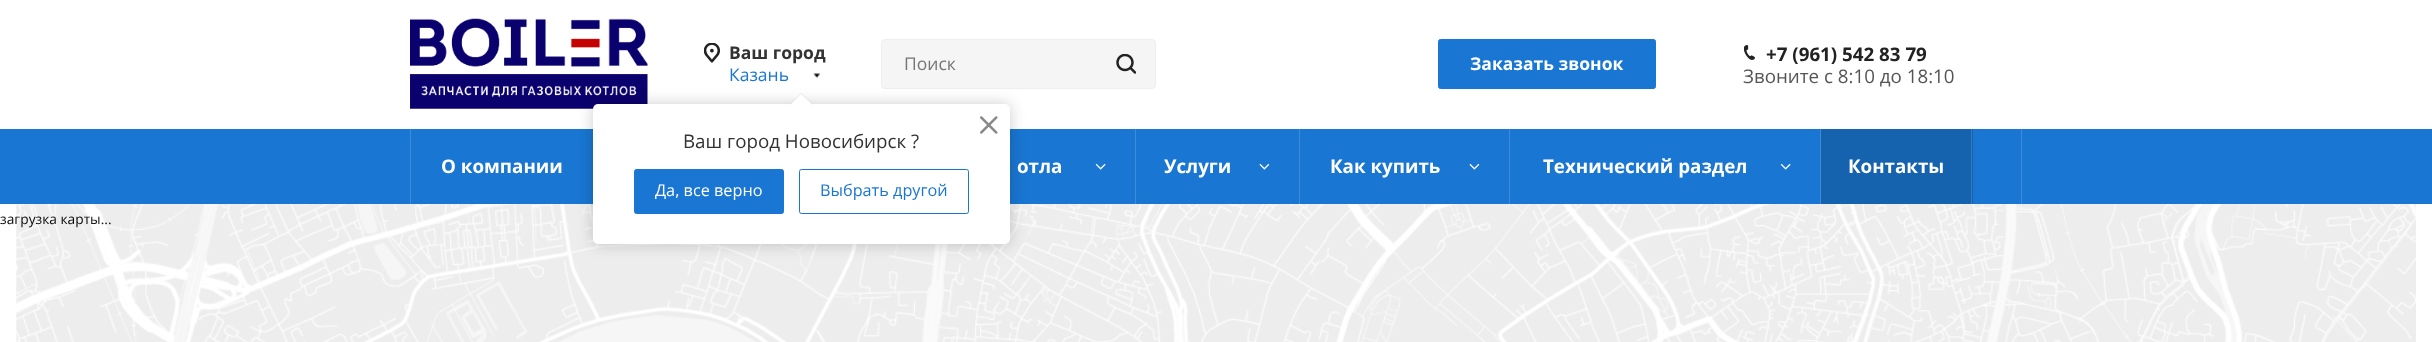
<!DOCTYPE html>
<meta charset="utf-8">
<style>body { margin: 0 } canvas { display: block }</style>
<canvas id="canvas" width="2432" height="342"></canvas>
<script type="module">
  const canvas = document.getElementById("canvas");
  const ctx = canvas.getContext("2d");
  ctx.miterLimit = 4;
  ctx.fontKerning = "normal";
  async function loadImage(src) {
    const img = new Image();
    img.src = src;
    await img.decode();
    return img;
  }

  ctx.fillStyle = "#ffffff";
  ctx.fillRect(0, 0, 2432, 342);
  ctx.drawImage(await loadImage("img1.png"), 410, 18, 238, 91);
  ctx.drawImage(await loadImage("img2.png"), 704, 43, 16, 20);
  ctx.font = "bold 17.5px Open Sans";
  ctx.fillStyle = "#333333";
  ctx.fillText("Ваш город", 729, 59);
  ctx.font = "17.5px Open Sans";
  ctx.fillStyle = "#1976d2";
  ctx.fillText("Казань", 729, 81);
  ctx.drawImage(await loadImage("img3.png"), 813, 73, 7, 5);
  ctx.fillStyle = "#f5f5f5";
  ctx.beginPath();
  ctx.roundRect(881.5, 39.5, 274, 49, 3.5);
  ctx.fill();
  ctx.strokeStyle = "#eeeeee";
  ctx.stroke();
  ctx.fillStyle = "#1976d2";
  ctx.fillRect(0, 129, 2432, 75);
  ctx.font = "13.75px Open Sans";
  ctx.fillStyle = "#0a0a0a";
  ctx.fillText("загрузка карты...", 0, 224);
  ctx.drawImage(await loadImage("img9.png"), 16, 204, 2400, 138);
  ctx.fillStyle = "rgba(0, 0, 0, 0.2)";
  ctx.filter = "blur(7.5px)";
  ctx.beginPath();
  ctx.roundRect(593, 104, 417, 140, 5);
  ctx.fill();
  ctx.filter = "none";
  ctx.fillStyle = "#ffffff";
  ctx.beginPath();
  ctx.roundRect(593, 104, 417, 140, 5);
  ctx.fill();
  ctx.fillStyle = "rgba(0, 0, 0, 0.05)";
  ctx.beginPath();
  ctx.moveTo(814, 105);
  ctx.lineTo(789, 105);
  ctx.lineTo(801, 92.5);
  ctx.closePath();
  ctx.fill();
  ctx.fillStyle = "#ffffff";
  ctx.beginPath();
  ctx.moveTo(814, 106);
  ctx.lineTo(789, 106);
  ctx.lineTo(801, 94);
  ctx.closePath();
  ctx.fill();
  ctx.drawImage(await loadImage("img4.png"), 980, 116, 18, 18);
  ctx.font = "18.75px Open Sans";
  ctx.fillStyle = "#333333";
  ctx.fillText("Ваш город Новосибирск ?", 683, 148);
  ctx.fillStyle = "#1976d2";
  ctx.beginPath();
  ctx.roundRect(634.5, 169.5, 149, 44, 2);
  ctx.fill();
  ctx.strokeStyle = "#1976d2";
  ctx.stroke();
  ctx.font = "16.25px Open Sans";
  ctx.fillStyle = "#ffffff";
  ctx.fillText("Да, все верно", 655, 196);
  ctx.beginPath();
  ctx.roundRect(799.5, 169.5, 169, 44, 2);
  ctx.stroke();
  ctx.fillStyle = "#1976d2";
  ctx.fillText("Выбрать другой", 820, 196);
  ctx.font = "17.5px Open Sans";
  ctx.fillStyle = "#757575";
  ctx.fillText("Поиск", 904, 70);
  ctx.drawImage(await loadImage("img5.png"), 1116, 54, 20, 20);
  ctx.fillStyle = "#1976d2";
  ctx.beginPath();
  ctx.roundRect(1438.5, 39.5, 217, 49, 2);
  ctx.fill();
  ctx.stroke();
  ctx.font = "bold 17.5px Open Sans";
  ctx.fillStyle = "#ffffff";
  ctx.fillText("Заказать звонок", 1470, 70);
  ctx.drawImage(await loadImage("img6.png"), 1744, 45, 11, 15);
  ctx.font = "bold 18.75px Open Sans";
  ctx.fillStyle = "#222222";
  ctx.fillText("+7 (961) 542 83 79", 1766, 61);
  ctx.font = "18.75px Open Sans";
  ctx.fillStyle = "#555555";
  ctx.fillText("Звоните с 8:10 до 18:10", 1743, 83);
  ctx.fillStyle = "#3c8bd9";
  ctx.fillRect(410, 129, 1, 75);
  ctx.font = "bold 18.75px Open Sans";
  ctx.fillStyle = "#ffffff";
  ctx.fillText("О компании", 441, 173);
  ctx.fillStyle = "#3c8bd9";
  ctx.fillRect(1135, 129, 1, 75);
  ctx.fillStyle = "#ffffff";
  ctx.fillText("отла", 1017, 173);
  ctx.drawImage(await loadImage("img7.png"), 1095, 163, 11, 7);
  ctx.fillStyle = "#3c8bd9";
  ctx.fillRect(1299, 129, 1, 75);
  ctx.fillStyle = "#ffffff";
  ctx.fillText("Услуги", 1164, 173);
  ctx.drawImage(await loadImage("img8.png"), 1259, 163, 11, 7);
  ctx.fillStyle = "#3c8bd9";
  ctx.fillRect(1509, 129, 1, 75);
  ctx.fillStyle = "#ffffff";
  ctx.fillText("Как купить", 1330, 173);
  ctx.drawImage(await loadImage("img8.png"), 1469, 163, 11, 7);
  ctx.fillStyle = "#3c8bd9";
  ctx.fillRect(1820, 129, 1, 75);
  ctx.fillStyle = "#ffffff";
  ctx.fillText("Технический раздел", 1543, 173);
  ctx.drawImage(await loadImage("img7.png"), 1780, 163, 11, 7);
  ctx.fillStyle = "#1562ae";
  ctx.fillRect(1821, 129, 152, 75);
  ctx.fillStyle = "#387aba";
  ctx.fillRect(1971, 129, 1, 75);
  ctx.fillStyle = "#ffffff";
  ctx.fillText("Контакты", 1848, 173);
  ctx.fillStyle = "#3c8bd9";
  ctx.fillRect(2021, 129, 1, 75);
</script>
